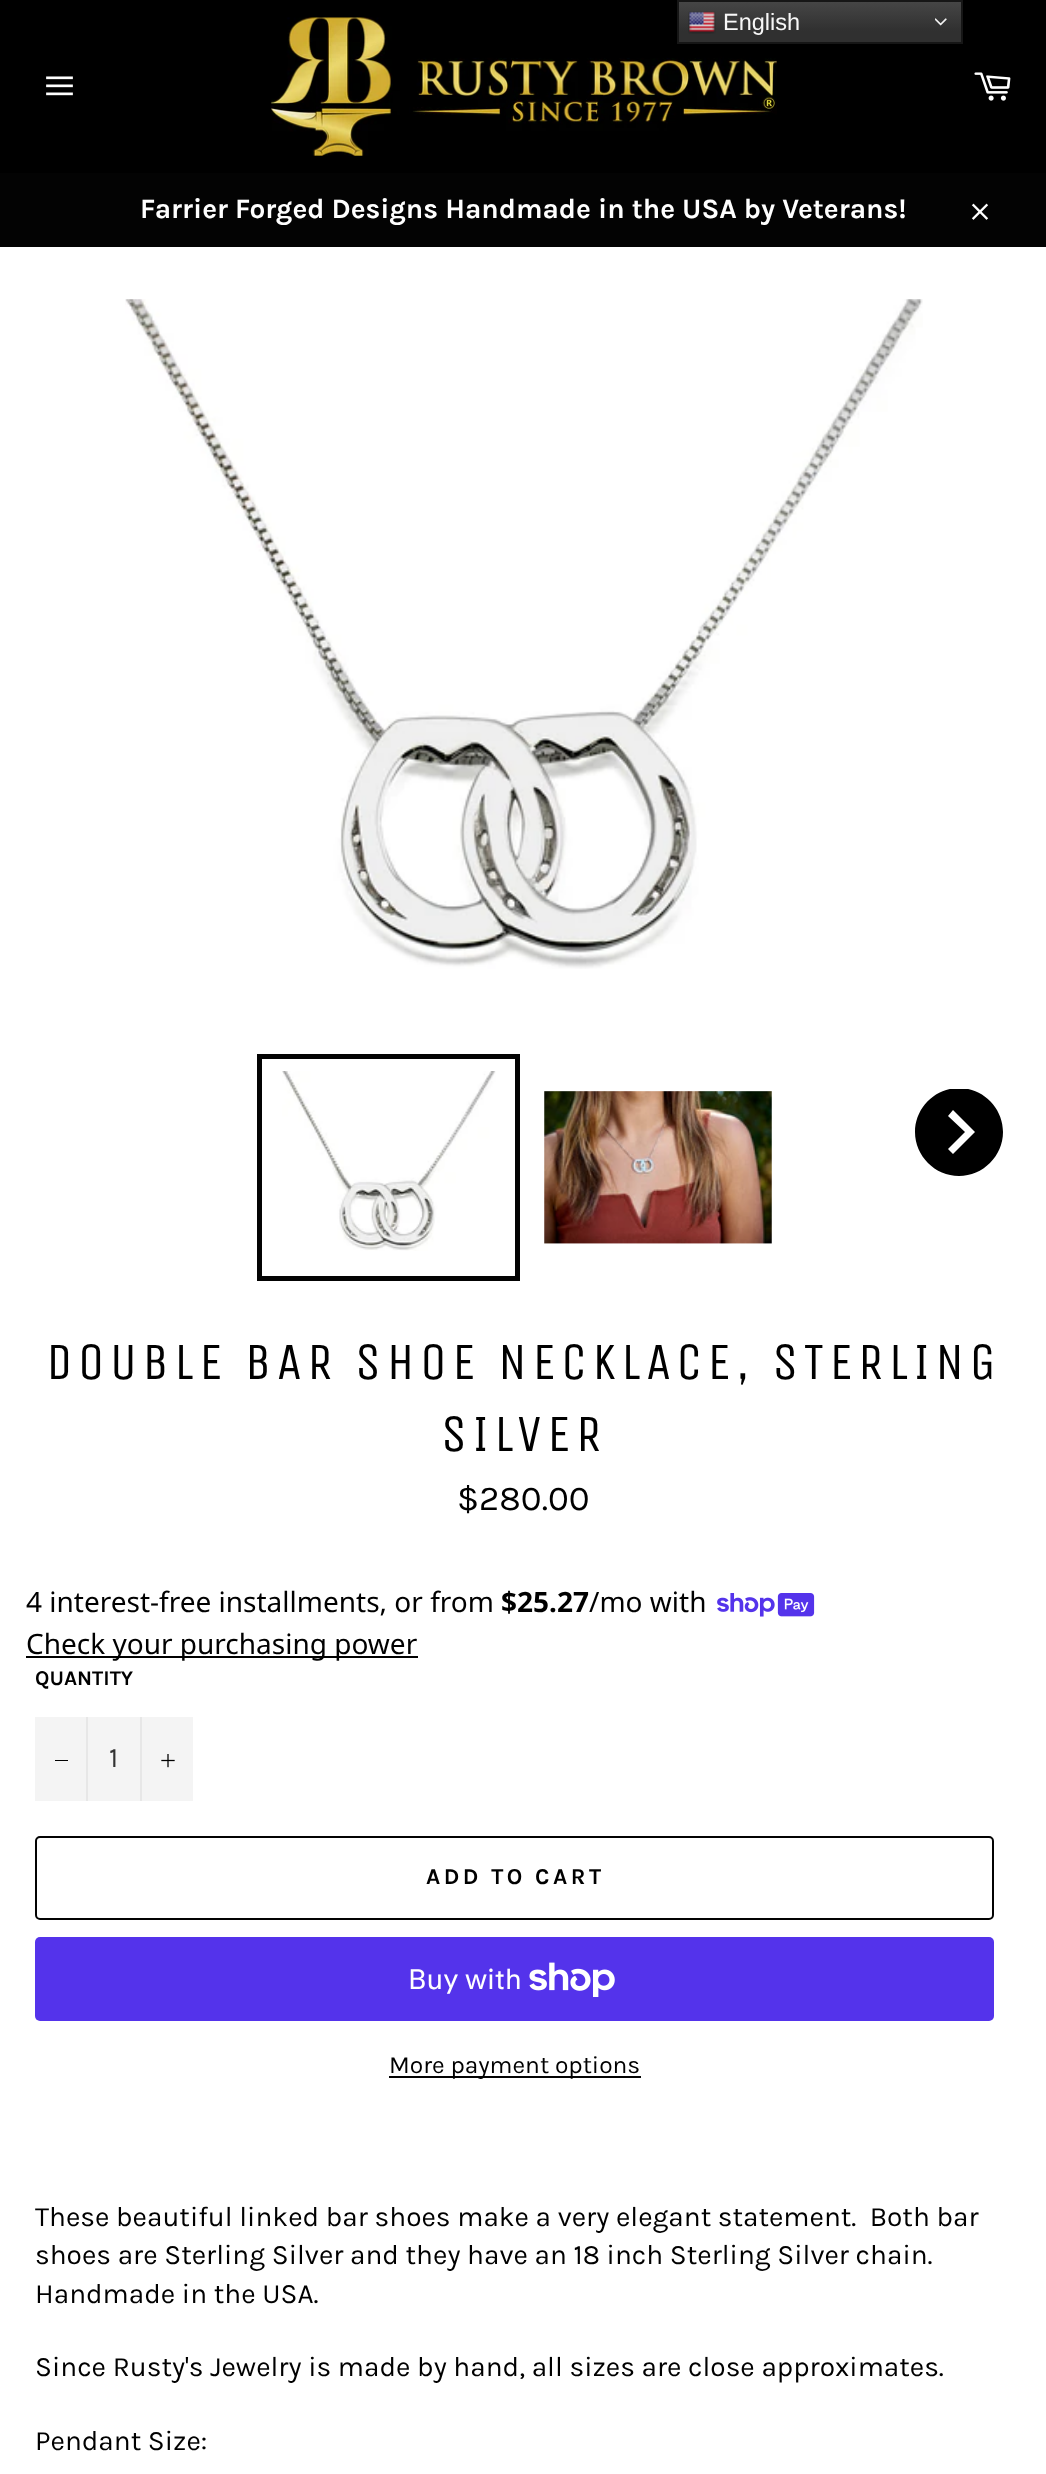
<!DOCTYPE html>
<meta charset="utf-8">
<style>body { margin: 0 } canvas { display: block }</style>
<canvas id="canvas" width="1046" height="2474"></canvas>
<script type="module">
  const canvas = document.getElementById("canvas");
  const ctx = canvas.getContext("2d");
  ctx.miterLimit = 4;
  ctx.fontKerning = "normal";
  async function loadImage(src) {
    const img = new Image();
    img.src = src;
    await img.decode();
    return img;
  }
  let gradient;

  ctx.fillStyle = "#ffffff";
  ctx.fillRect(0, 0, 1046, 2474);
  ctx.fillStyle = "#000000";
  ctx.fillRect(0, 0, 1046, 173);
  ctx.drawImage(await loadImage("img4.png"), 271, 17, 506, 139);
  gradient = ctx.createLinearGradient(820, 0, 820, 44);
  gradient.addColorStop(0, "#474747");
  gradient.addColorStop(0.7, "#303030");
  ctx.fillStyle = gradient;
  ctx.fillRect(679, 2, 282, 40);
  ctx.strokeStyle = "#161616";
  ctx.lineWidth = 2;
  ctx.strokeRect(678, 1, 284, 42);
  ctx.drawImage(await loadImage("img1.png"), 688, 11, 28, 23);
  ctx.font = "23.5px Liberation Sans";
  ctx.fillStyle = "#f7f7f7";
  ctx.fillText("English", 723, 30);
  ctx.drawImage(await loadImage("img2.png"), 935, 18, 12, 8);
  ctx.drawImage(await loadImage("img3.png"), 46, 76, 27, 20);
  ctx.drawImage(await loadImage("img5.png"), 974, 72, 37, 29);
  ctx.fillStyle = "#030303";
  ctx.fillRect(0, 173, 1046, 74);
  ctx.font = "bold 28px Karla";
  ctx.fillStyle = "#ffffff";
  ctx.fillText("Farrier Forged Designs Handmade in the USA by Veterans!", 140, 218);
  ctx.drawImage(await loadImage("img6.png"), 971, 203, 18, 17);
  ctx.save();
  ctx.beginPath();
  ctx.rect(915, 1089, 88, 87);
  ctx.clip();
  ctx.fillStyle = "#000000";
  ctx.beginPath();
  ctx.moveTo(959, 1088);
  ctx.bezierCurveTo(935, 1088, 915, 1108, 915, 1132);
  ctx.bezierCurveTo(915, 1156, 935, 1176, 959, 1176);
  ctx.bezierCurveTo(983, 1176, 1003, 1156, 1003, 1132);
  ctx.bezierCurveTo(1003, 1108, 983, 1088, 959, 1088);
  ctx.closePath();
  ctx.moveTo(953, 1154);
  ctx.lineTo(948, 1149);
  ctx.lineTo(965, 1132);
  ctx.lineTo(948, 1116);
  ctx.lineTo(953, 1110);
  ctx.lineTo(975, 1132);
  ctx.closePath();
  ctx.fill();
  ctx.restore();
  ctx.drawImage(await loadImage("img7.png"), 125, 299, 798, 670);
  ctx.drawImage(await loadImage("img8.png"), 282, 1071, 214, 180);
  ctx.strokeStyle = "#030303";
  ctx.lineWidth = 5;
  ctx.strokeRect(259.5, 1056.5, 258, 222);
  ctx.drawImage(await loadImage("img9.png"), 544, 1091, 228, 153);
  ctx.letterSpacing = "5.25px";
  ctx.font = "52.5px Unica One";
  ctx.fillStyle = "#000000";
  ctx.fillText("DOUBLE BAR SHOE NECKLACE, STERLING", 46, 1379);
  ctx.fillText("SILVER", 441, 1451);
  ctx.letterSpacing = "0px";
  ctx.font = "35px Karla";
  ctx.fillText("$280.00", 457, 1510);
  ctx.font = "28px Noto Sans";
  ctx.fillText("4 interest-free installments, or from", 26, 1612);
  ctx.font = "bold 28px Noto Sans";
  ctx.fillText("$25.27", 501, 1612);
  ctx.font = "28px Noto Sans";
  ctx.fillText("/mo with", 589, 1612);
  ctx.drawImage(await loadImage("img10.png"), 717, 1593, 98, 24);
  ctx.fillRect(26, 1656, 392, 2);
  ctx.fillText("Check your purchasing power", 26, 1654);
  ctx.font = "bold 21px Karla";
  ctx.fillText("QUANTITY", 35, 1685);
  ctx.fillStyle = "#f4f4f4";
  ctx.fillRect(35, 1717, 158, 84);
  ctx.fillStyle = "#e7e7e7";
  ctx.fillRect(86, 1717, 2, 84);
  ctx.fillStyle = "#000000";
  ctx.fillRect(55, 1760, 13, 1);
  ctx.font = "28px Karla";
  ctx.fillStyle = "#333333";
  ctx.fillText("1", 109, 1767);
  ctx.fillStyle = "#e7e7e7";
  ctx.fillRect(140, 1717, 2, 84);
  ctx.drawImage(await loadImage("img11.png"), 161, 1754, 14, 14);
  ctx.beginPath();
  ctx.roundRect(36, 1837, 957, 82, 4);
  ctx.lineWidth = 2;
  ctx.stroke();
  ctx.letterSpacing = "3.5px";
  ctx.font = "bold 22.75px Karla";
  ctx.fillStyle = "#000000";
  ctx.fillText("ADD TO CART", 426, 1884);
  ctx.fillStyle = "#5433eb";
  ctx.beginPath();
  ctx.roundRect(35, 1937, 959, 84, 5);
  ctx.fill();
  ctx.letterSpacing = "0px";
  ctx.font = "28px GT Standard";
  ctx.fillStyle = "#ffffff";
  ctx.fillText("Buy with", 408, 1989);
  ctx.drawImage(await loadImage("img12.png"), 529, 1962, 86, 35);
  ctx.fillStyle = "#030303";
  ctx.fillRect(389, 2076, 252, 2);
  ctx.font = "24.5px Karla";
  ctx.fillStyle = "#000000";
  ctx.fillText("More payment options", 389, 2073);
  ctx.font = "28px Karla";
  ctx.fillText("These beautiful linked bar shoes make a very elegant statement.  Both bar", 35, 2226);
  ctx.fillText("shoes are Sterling Silver and they have an 18 inch Sterling Silver chain.", 35, 2264);
  ctx.fillText("Handmade in the USA.", 35, 2303);
  ctx.fillText("Since Rusty's Jewelry is made by hand, all sizes are close approximates.", 35, 2376);
  ctx.fillText("Pendant Size:", 35, 2450);
</script>
